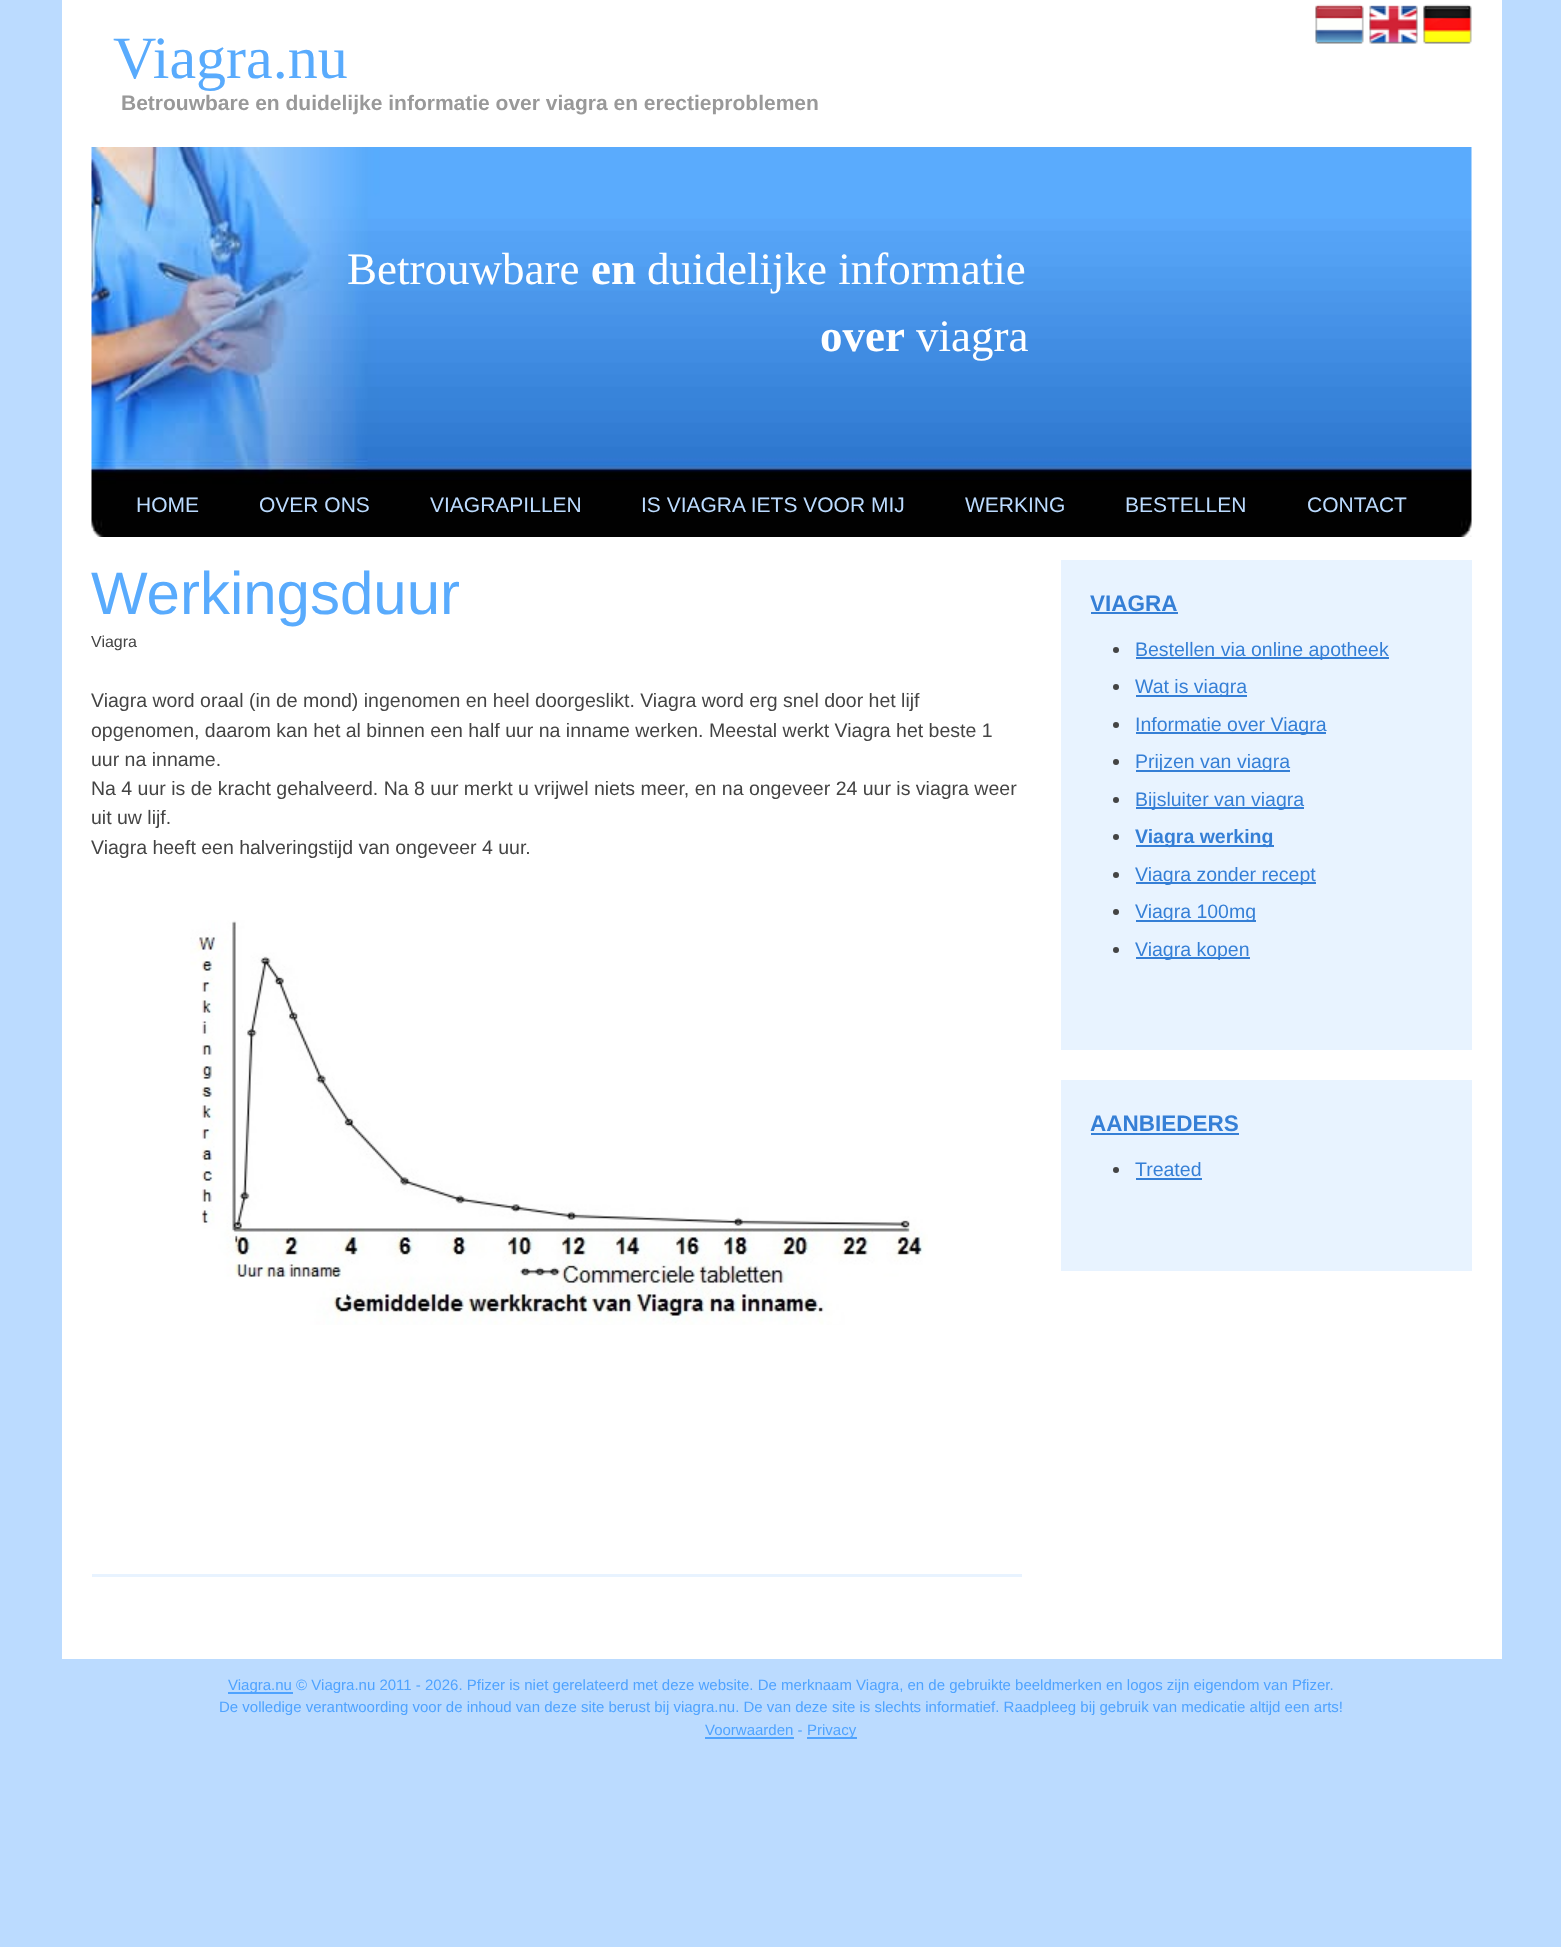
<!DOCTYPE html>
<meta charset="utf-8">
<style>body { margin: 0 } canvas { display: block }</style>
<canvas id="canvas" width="1561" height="1947"></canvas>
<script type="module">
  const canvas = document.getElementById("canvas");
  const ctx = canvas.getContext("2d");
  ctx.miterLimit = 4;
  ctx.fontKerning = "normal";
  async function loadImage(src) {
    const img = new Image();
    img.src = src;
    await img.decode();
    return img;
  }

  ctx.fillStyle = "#bbdbff";
  ctx.fillRect(0, 0, 1561, 1947);
  ctx.fillStyle = "#ffffff";
  ctx.fillRect(62, 0, 1440, 1659);
  ctx.drawImage(await loadImage("img1.png"), 1315, 4, 49, 40);
  ctx.drawImage(await loadImage("img2.png"), 1369, 5, 49, 39);
  ctx.drawImage(await loadImage("img3.png"), 1423, 4, 49, 40);
  ctx.font = "60px Liberation Serif";
  ctx.fillStyle = "#59abfd";
  ctx.fillText("Viagra.nu", 113, 78);
  ctx.font = "bold 21px Liberation Sans";
  ctx.fillStyle = "#999999";
  ctx.fillText("Betrouwbare en duidelijke informatie over viagra en erectieproblemen", 121, 110);
  ctx.drawImage(await loadImage("img4.png"), 91, 147, 1381, 390);
  ctx.font = "45px Liberation Serif";
  ctx.fillStyle = "#ffffff";
  ctx.fillText("Betrouwbare", 347, 284);
  ctx.font = "bold 45px Liberation Serif";
  ctx.fillText("en", 591, 284);
  ctx.font = "45px Liberation Serif";
  ctx.fillText("duidelijke informatie", 647, 284);
  ctx.font = "bold 45px Liberation Serif";
  ctx.fillText("over", 820, 351);
  ctx.font = "45px Liberation Serif";
  ctx.fillText("viagra", 916, 351);
  ctx.font = "21px Liberation Sans";
  ctx.fillStyle = "#bbdbff";
  ctx.fillText("HOME", 136, 512);
  ctx.fillText("OVER ONS", 259, 512);
  ctx.fillText("VIAGRAPILLEN", 430, 512);
  ctx.fillText("IS VIAGRA IETS VOOR MIJ", 641, 512);
  ctx.fillText("WERKING", 965, 512);
  ctx.fillText("BESTELLEN", 1125, 512);
  ctx.fillText("CONTACT", 1307, 512);
  ctx.fillStyle = "#e8f3ff";
  ctx.fillRect(92, 1574, 930, 3);
  ctx.font = "60px Liberation Sans";
  ctx.fillStyle = "#59abfd";
  ctx.fillText("Werkingsduur", 91, 614);
  ctx.font = "16px Liberation Sans";
  ctx.fillStyle = "#444444";
  ctx.fillText("Viagra", 91, 647);
  ctx.font = "19.5px Liberation Sans";
  ctx.fillText("Viagra word oraal (in de mond) ingenomen en heel doorgeslikt. Viagra word erg snel door het lijf", 91, 707);
  ctx.fillText("opgenomen, daarom kan het al binnen een half uur na inname werken. Meestal werkt Viagra het beste 1", 91, 737);
  ctx.fillText("uur na inname.", 91, 766);
  ctx.fillText("Na 4 uur is de kracht gehalveerd. Na 8 uur merkt u vrijwel niets meer, en na ongeveer 24 uur is viagra weer", 91, 795);
  ctx.fillText("uit uw lijf.", 91, 824);
  ctx.fillText("Viagra heeft een halveringstijd van ongeveer 4 uur.", 91, 854);
  ctx.drawImage(await loadImage("img5.png"), 190, 920, 738, 405);
  ctx.fillStyle = "#e8f3ff";
  ctx.fillRect(1061, 560, 411, 490);
  ctx.font = "bold 22.5px Liberation Sans";
  ctx.fillStyle = "#357fd6";
  ctx.fillText("VIAGRA", 1090, 611);
  ctx.fillRect(1091, 612, 87, 2);
  ctx.fillStyle = "#444444";
  ctx.beginPath();
  ctx.arc(1116, 650, 3, 0, Math.PI * 2);
  ctx.fill();
  ctx.fillStyle = "#357fd6";
  ctx.fillRect(1136, 657, 253, 2);
  ctx.font = "19.5px Liberation Sans";
  ctx.fillText("Bestellen via online apotheek", 1135, 656);
  ctx.fillStyle = "#444444";
  ctx.beginPath();
  ctx.arc(1116, 687, 3, 0, Math.PI * 2);
  ctx.fill();
  ctx.fillStyle = "#357fd6";
  ctx.fillRect(1136, 695, 111, 2);
  ctx.fillText("Wat is viagra", 1135, 693);
  ctx.fillStyle = "#444444";
  ctx.beginPath();
  ctx.arc(1116, 725, 3, 0, Math.PI * 2);
  ctx.fill();
  ctx.fillStyle = "#357fd6";
  ctx.fillRect(1136, 732, 190, 2);
  ctx.fillText("Informatie over Viagra", 1135, 731);
  ctx.fillStyle = "#444444";
  ctx.beginPath();
  ctx.arc(1116, 762, 3, 0, Math.PI * 2);
  ctx.fill();
  ctx.fillStyle = "#357fd6";
  ctx.fillRect(1136, 770, 154, 2);
  ctx.fillText("Prijzen van viagra", 1135, 768);
  ctx.fillStyle = "#444444";
  ctx.beginPath();
  ctx.arc(1116, 800, 3, 0, Math.PI * 2);
  ctx.fill();
  ctx.fillStyle = "#357fd6";
  ctx.fillRect(1136, 807, 168, 2);
  ctx.fillText("Bijsluiter van viagra", 1135, 806);
  ctx.fillStyle = "#444444";
  ctx.beginPath();
  ctx.arc(1116, 837, 3, 0, Math.PI * 2);
  ctx.fill();
  ctx.fillStyle = "#357fd6";
  ctx.fillRect(1136, 845, 138, 2);
  ctx.font = "bold 19.5px Liberation Sans";
  ctx.fillText("Viagra werking", 1135, 843);
  ctx.fillStyle = "#444444";
  ctx.beginPath();
  ctx.arc(1116, 875, 3, 0, Math.PI * 2);
  ctx.fill();
  ctx.fillStyle = "#357fd6";
  ctx.fillRect(1136, 882, 180, 2);
  ctx.font = "19.5px Liberation Sans";
  ctx.fillText("Viagra zonder recept", 1135, 881);
  ctx.fillStyle = "#444444";
  ctx.beginPath();
  ctx.arc(1116, 912, 3, 0, Math.PI * 2);
  ctx.fill();
  ctx.fillStyle = "#357fd6";
  ctx.fillRect(1136, 920, 120, 2);
  ctx.fillText("Viagra 100mg", 1135, 918);
  ctx.fillStyle = "#444444";
  ctx.beginPath();
  ctx.arc(1116, 950, 3, 0, Math.PI * 2);
  ctx.fill();
  ctx.fillStyle = "#357fd6";
  ctx.fillRect(1136, 957, 114, 2);
  ctx.fillText("Viagra kopen", 1135, 956);
  ctx.fillStyle = "#e8f3ff";
  ctx.fillRect(1061, 1080, 411, 191);
  ctx.font = "bold 22.5px Liberation Sans";
  ctx.fillStyle = "#357fd6";
  ctx.fillText("AANBIEDERS", 1090, 1131);
  ctx.fillRect(1091, 1133, 148, 2);
  ctx.fillStyle = "#444444";
  ctx.beginPath();
  ctx.arc(1116, 1170, 3, 0, Math.PI * 2);
  ctx.fill();
  ctx.font = "19.5px Liberation Sans";
  ctx.fillStyle = "#357fd6";
  ctx.fillText("Treated", 1135, 1176);
  ctx.fillRect(1136, 1178, 66, 2);
  ctx.fillStyle = "#4fa3ff";
  ctx.fillRect(228, 1692, 65, 2);
  ctx.font = "15px Liberation Sans";
  ctx.fillText("Viagra.nu © Viagra.nu 2011 - 2026. Pfizer is niet gerelateerd met deze website. De merknaam Viagra, en de gebruikte beeldmerken en logos zijn eigendom van Pfizer.", 228, 1690);
  ctx.fillText("De volledige verantwoording voor de inhoud van deze site berust bij viagra.nu. De van deze site is slechts informatief. Raadpleeg bij gebruik van medicatie altijd een arts!", 219, 1712);
  ctx.fillText("Voorwaarden -", 705, 1735);
  ctx.fillRect(705, 1737, 89, 2);
  ctx.fillRect(807, 1737, 50, 2);
  ctx.fillText("Privacy", 807, 1735);
</script>
